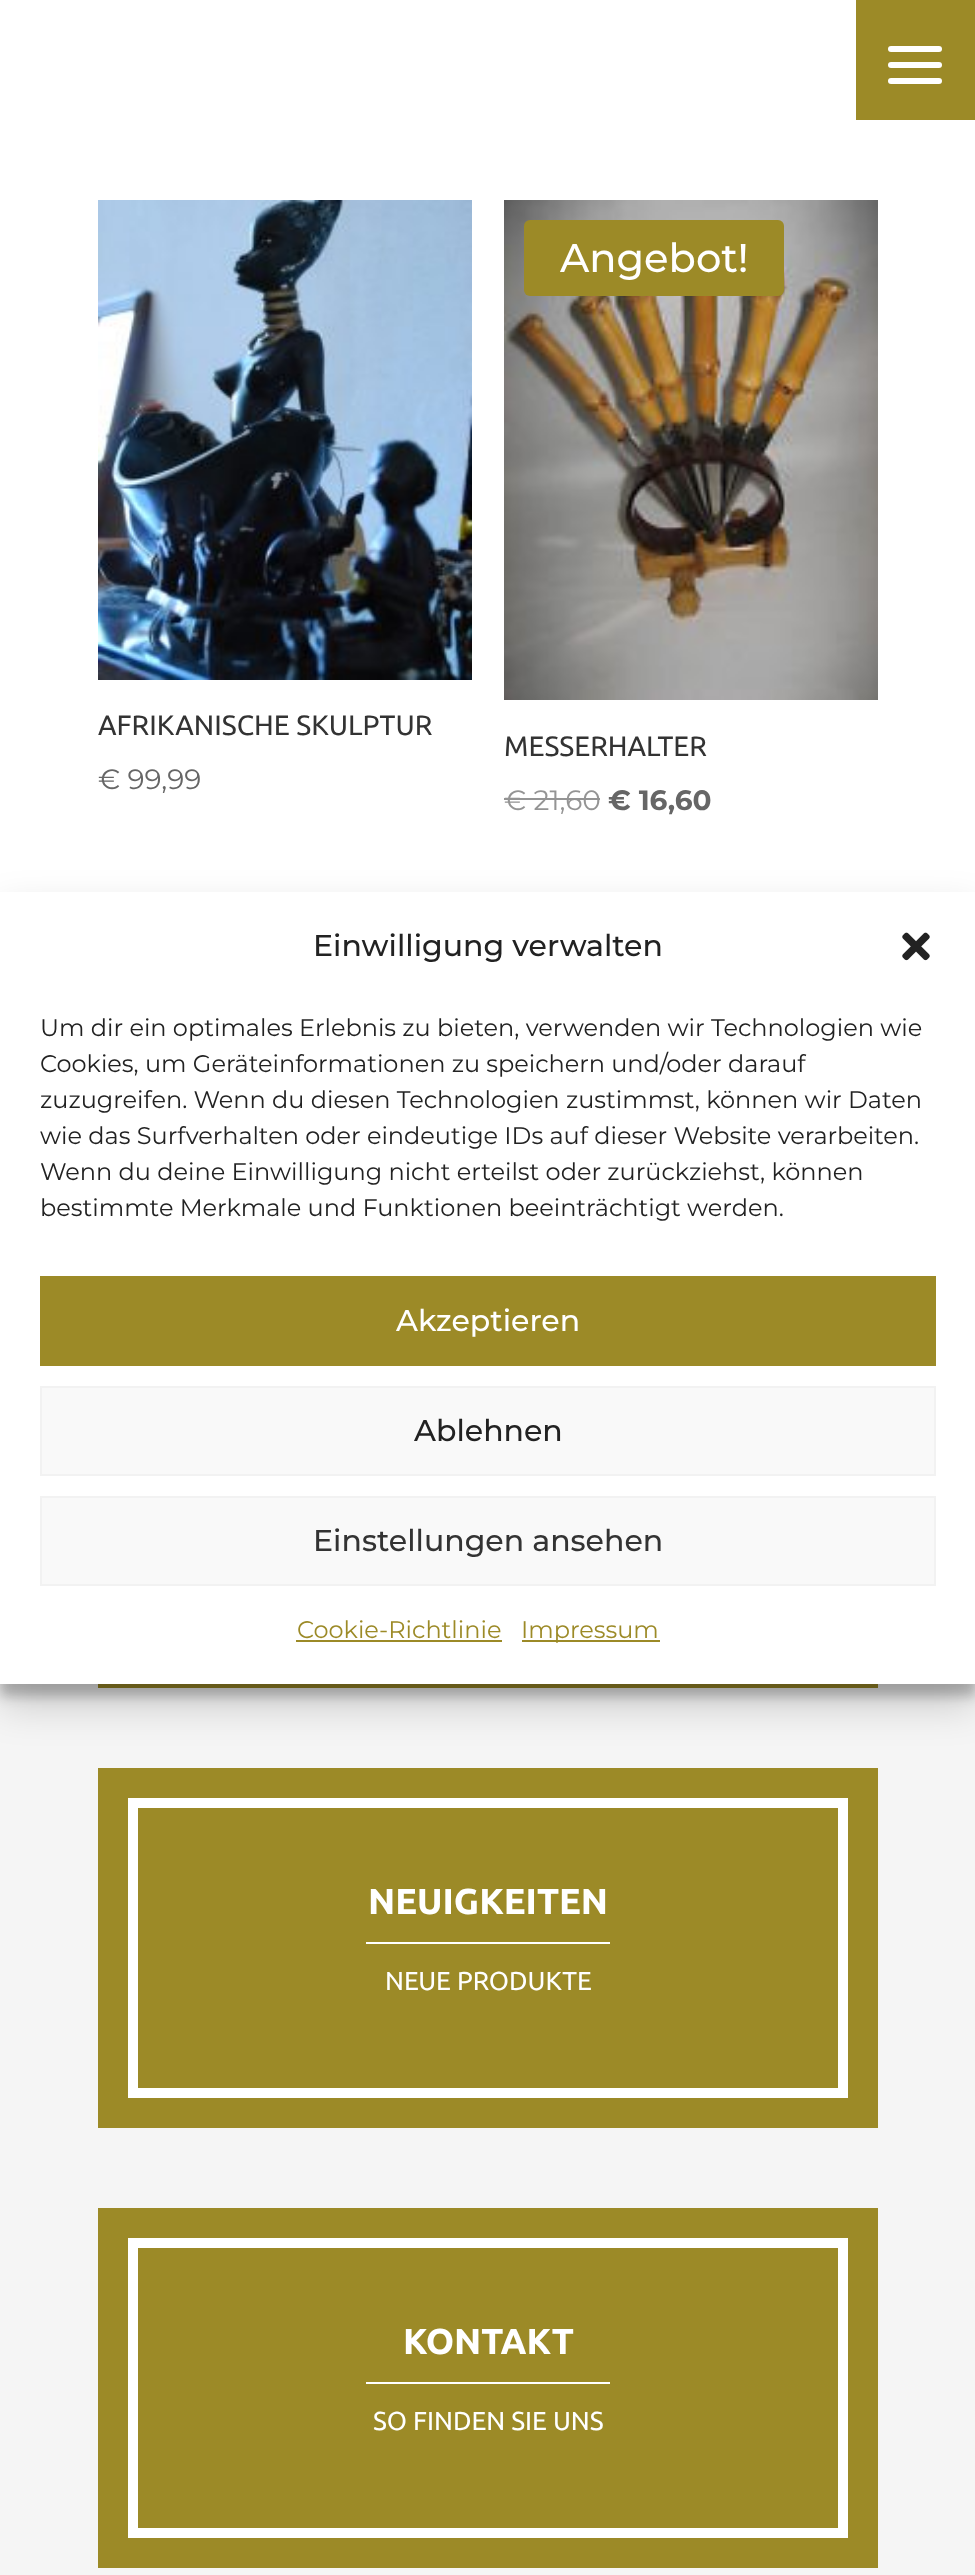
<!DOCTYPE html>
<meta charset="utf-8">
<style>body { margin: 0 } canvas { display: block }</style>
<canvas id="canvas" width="975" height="2575"></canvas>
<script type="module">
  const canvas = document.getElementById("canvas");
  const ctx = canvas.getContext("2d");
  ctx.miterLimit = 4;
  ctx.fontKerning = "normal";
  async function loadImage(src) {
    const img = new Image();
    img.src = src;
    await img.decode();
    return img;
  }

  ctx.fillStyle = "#ffffff";
  ctx.fillRect(0, 0, 975, 2575);
  ctx.fillStyle = "#9c8a27";
  ctx.fillRect(856, 0, 119, 120);
  ctx.fillStyle = "#ffffff";
  ctx.beginPath();
  ctx.roundRect(888, 62, 54, 6, 3);
  ctx.fill();
  ctx.beginPath();
  ctx.roundRect(888, 46, 54, 6, 3);
  ctx.fill();
  ctx.beginPath();
  ctx.roundRect(888, 78, 54, 6, 3);
  ctx.fill();
  ctx.drawImage(await loadImage("img1.png"), 98, 200, 374, 480);
  ctx.font = "28px Ubuntu";
  ctx.fillStyle = "#333333";
  ctx.fillText("AFRIKANISCHE SKULPTUR", 98, 735);
  ctx.font = "28px Montserrat";
  ctx.fillStyle = "#666666";
  ctx.fillText("€ 99,99", 98, 789);
  ctx.drawImage(await loadImage("img2.png"), 504, 200, 374, 500);
  ctx.fillStyle = "#9c8a27";
  ctx.beginPath();
  ctx.roundRect(524, 220, 260, 76, 6);
  ctx.fill();
  ctx.font = "500 40px Montserrat";
  ctx.fillStyle = "#ffffff";
  ctx.fillText("Angebot!", 560, 272);
  ctx.font = "28px Ubuntu";
  ctx.fillStyle = "#333333";
  ctx.fillText("MESSERHALTER", 504, 756);
  ctx.font = "28px Montserrat";
  ctx.fillStyle = "#949494";
  ctx.fillText("€ 21,60", 504, 810);
  ctx.fillRect(504, 798, 96, 2);
  ctx.font = "bold 28px Montserrat";
  ctx.fillStyle = "#666666";
  ctx.fillText("€ 16,60", 608, 810);
  ctx.fillStyle = "#f5f5f5";
  ctx.fillRect(0, 1684, 975, 891);
  ctx.strokeStyle = "#9c8a27";
  ctx.lineWidth = 30;
  ctx.strokeRect(113, 1343, 750, 330);
  ctx.strokeRect(113, 1783, 750, 330);
  ctx.fillStyle = "#9c8a27";
  ctx.beginPath();
  ctx.rect(133, 1803, 710, 290);
  ctx.fill();
  ctx.strokeStyle = "#ffffff";
  ctx.lineWidth = 10;
  ctx.stroke();
  ctx.font = "bold 36px Ubuntu";
  ctx.fillStyle = "#ffffff";
  ctx.fillText("NEUIGKEITEN", 368, 1914);
  ctx.fillRect(366, 1942, 244, 2);
  ctx.font = "26px Ubuntu";
  ctx.fillText("NEUE PRODUKTE", 385, 1990);
  ctx.strokeStyle = "#9c8a27";
  ctx.lineWidth = 30;
  ctx.strokeRect(113, 2223, 750, 330);
  ctx.fillStyle = "#9c8a27";
  ctx.beginPath();
  ctx.rect(133, 2243, 710, 290);
  ctx.fill();
  ctx.strokeStyle = "#ffffff";
  ctx.lineWidth = 10;
  ctx.stroke();
  ctx.font = "bold 36px Ubuntu";
  ctx.fillStyle = "#ffffff";
  ctx.fillText("KONTAKT", 403, 2354);
  ctx.fillRect(366, 2382, 244, 2);
  ctx.font = "26px Ubuntu";
  ctx.fillText("SO FINDEN SIE UNS", 373, 2430);
  ctx.fillStyle = "rgba(0, 0, 0, 0.23)";
  ctx.filter = "blur(6px)";
  ctx.beginPath();
  ctx.rect(0, 904, 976, 792);
  ctx.fill();
  ctx.filter = "none";
  ctx.fillStyle = "rgba(0, 0, 0, 0.19)";
  ctx.filter = "blur(20px)";
  ctx.beginPath();
  ctx.rect(0, 912, 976, 792);
  ctx.fill();
  ctx.filter = "none";
  ctx.fillStyle = "#ffffff";
  ctx.fillRect(0, 892, 975, 792);
  ctx.font = "500 30px Montserrat";
  ctx.fillStyle = "#222222";
  ctx.fillText("Einwilligung verwalten", 313, 956);
  ctx.drawImage(await loadImage("img3.png"), 902, 932, 28, 29);
  ctx.font = "24px Montserrat";
  ctx.fillText("Um dir ein optimales Erlebnis zu bieten, verwenden wir Technologien wie", 40, 1036);
  ctx.fillText("Cookies, um Geräteinformationen zu speichern und/oder darauf", 40, 1072);
  ctx.fillText("zuzugreifen. Wenn du diesen Technologien zustimmst, können wir Daten", 40, 1108);
  ctx.fillText("wie das Surfverhalten oder eindeutige IDs auf dieser Website verarbeiten.", 40, 1144);
  ctx.fillText("Wenn du deine Einwilligung nicht erteilst oder zurückziehst, können", 40, 1180);
  ctx.fillText("bestimmte Merkmale und Funktionen beeinträchtigt werden.", 40, 1216);
  ctx.fillStyle = "#9c8a27";
  ctx.fillRect(40, 1276, 896, 90);
  ctx.font = "500 30px Montserrat";
  ctx.fillStyle = "#ffffff";
  ctx.fillText("Akzeptieren", 396, 1331);
  ctx.fillStyle = "#f9f9f9";
  ctx.beginPath();
  ctx.rect(41, 1387, 894, 88);
  ctx.fill();
  ctx.strokeStyle = "#f2f2f2";
  ctx.lineWidth = 2;
  ctx.stroke();
  ctx.fillStyle = "#222222";
  ctx.fillText("Ablehnen", 414, 1441);
  ctx.fillStyle = "#f9f9f9";
  ctx.beginPath();
  ctx.rect(41, 1497, 894, 88);
  ctx.fill();
  ctx.stroke();
  ctx.fillStyle = "#333333";
  ctx.fillText("Einstellungen ansehen", 313, 1551);
  ctx.font = "24px Montserrat";
  ctx.fillStyle = "#9c8a27";
  ctx.fillText("Cookie-Richtlinie", 297, 1638);
  ctx.fillRect(296, 1640, 206, 2);
  ctx.fillRect(522, 1640, 138, 2);
  ctx.fillText("Impressum", 521, 1638);
</script>
